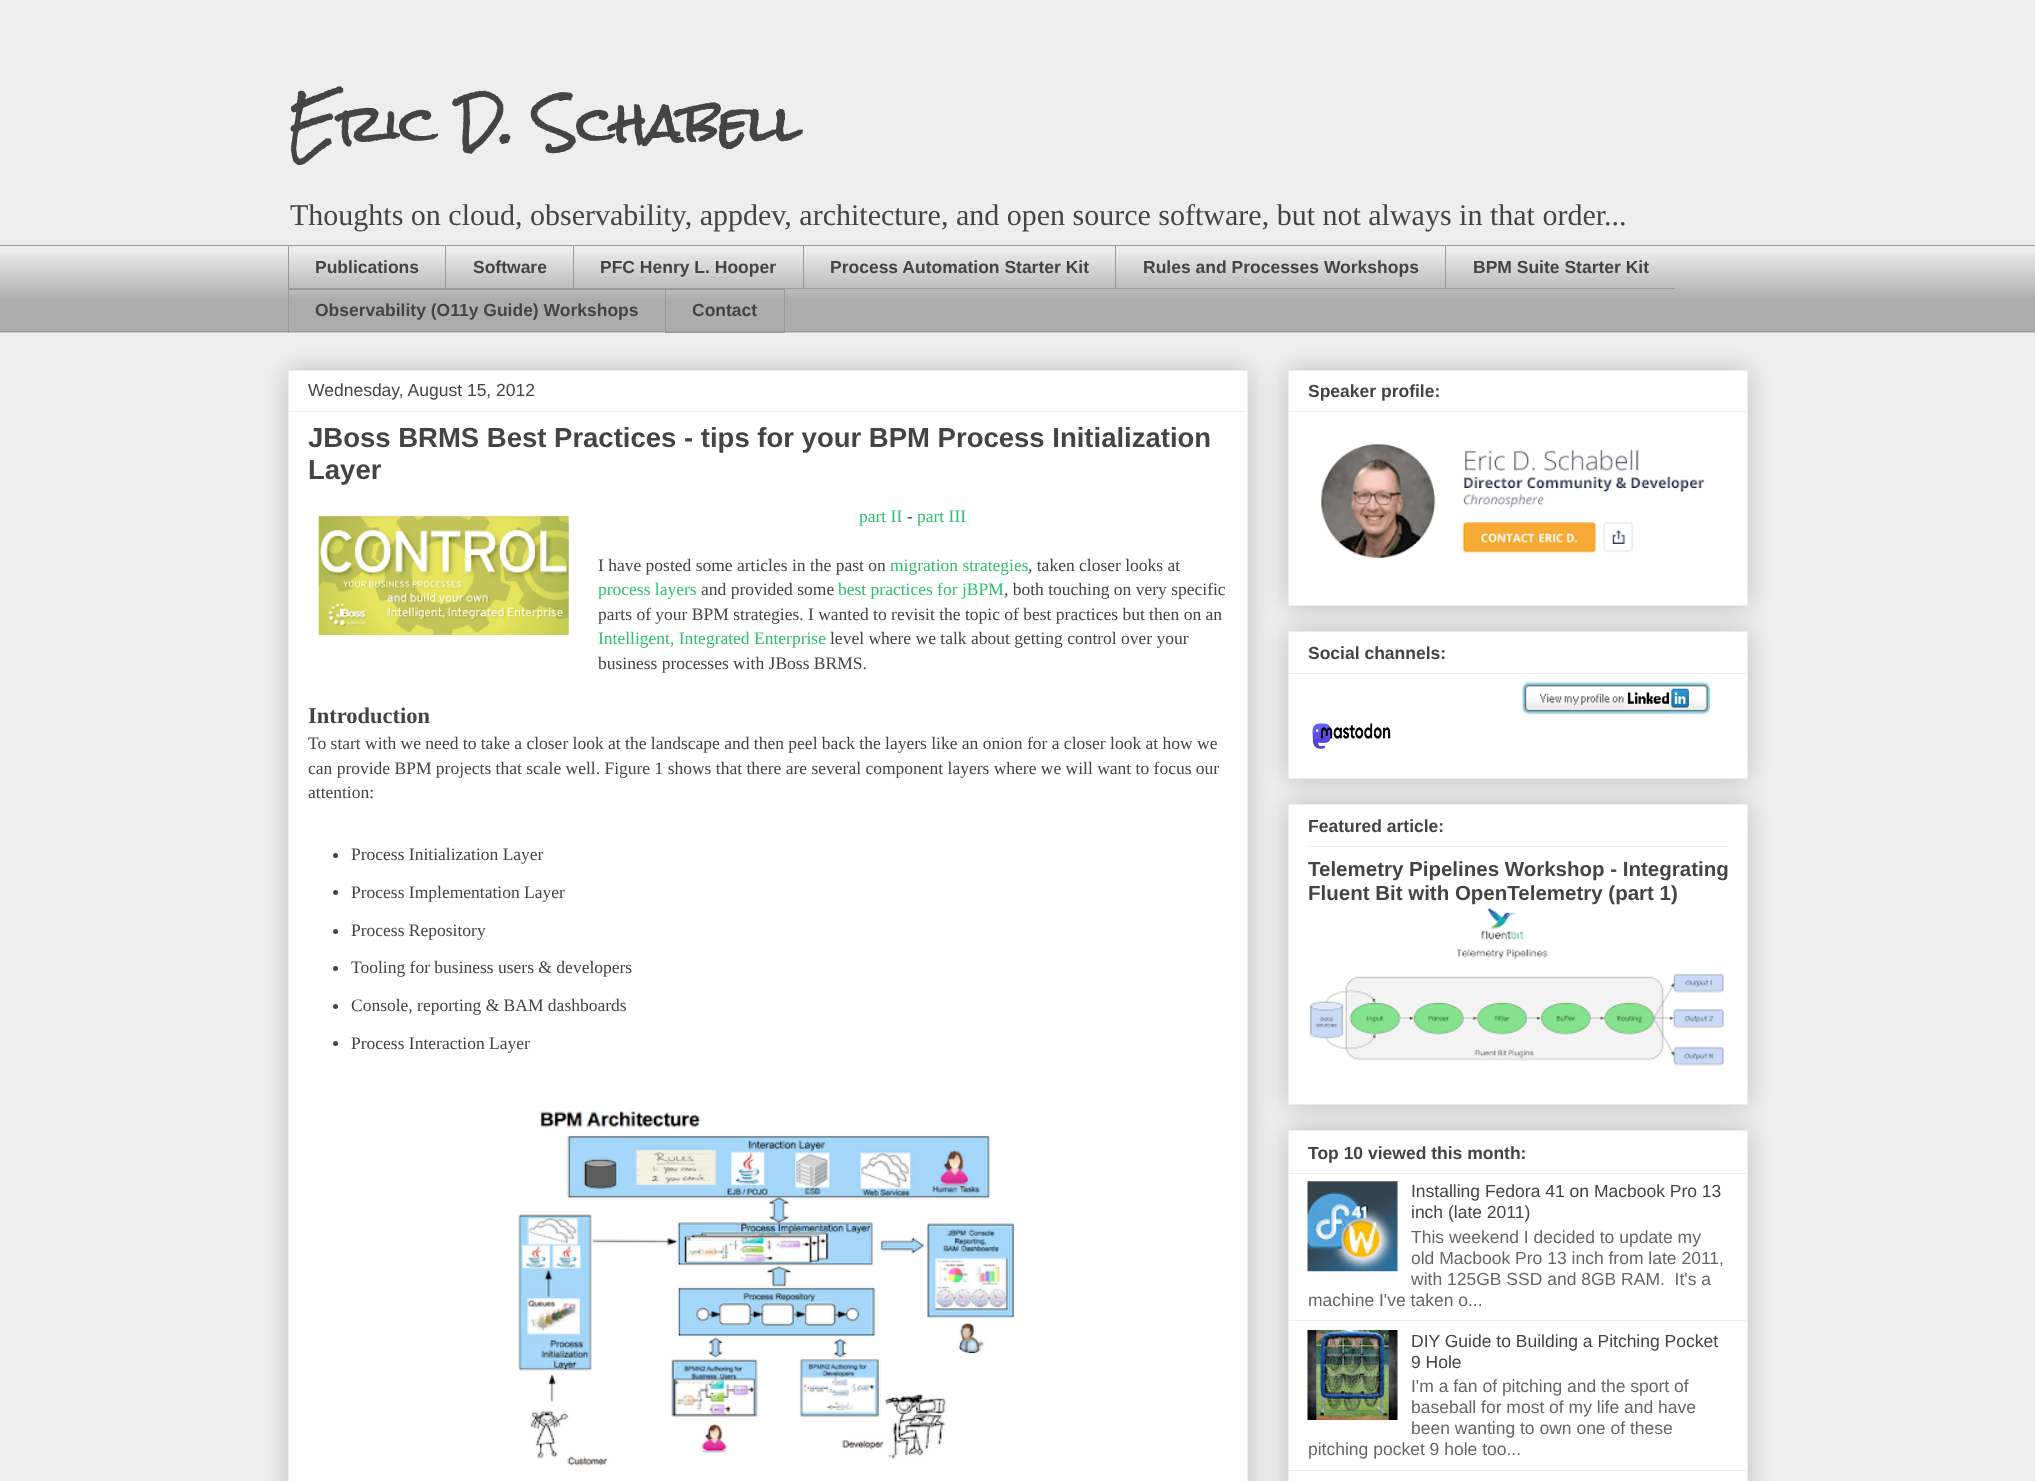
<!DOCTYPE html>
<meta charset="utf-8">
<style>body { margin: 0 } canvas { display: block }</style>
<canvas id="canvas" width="2035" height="1481"></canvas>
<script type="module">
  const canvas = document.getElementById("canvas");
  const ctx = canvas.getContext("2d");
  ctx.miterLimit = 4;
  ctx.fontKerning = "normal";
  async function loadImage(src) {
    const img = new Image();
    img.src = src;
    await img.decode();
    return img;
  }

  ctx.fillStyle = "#eeeeee";
  ctx.fillRect(0, 0, 2035, 1481);
  ctx.font = "bold 50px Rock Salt";
  ctx.fillStyle = "#444444";
  ctx.fillText("Eric D. Schabell", 288, 144);
  ctx.font = "30px Liberation Serif";
  ctx.fillText("Thoughts on cloud, observability, appdev, architecture, and open source software, but not always in that order...", 290, 225);
  ctx.drawImage(await loadImage("img1.png"), 0, 252, 2035, 81);
  ctx.fillStyle = "#999999";
  ctx.fillRect(0, 245, 2035, 1);
  ctx.fillRect(288, 288, 1387, 1);
  ctx.fillRect(288, 245, 1, 44);
  ctx.font = "bold 17.5px Liberation Sans";
  ctx.fillStyle = "#444444";
  ctx.fillText("Publications", 315, 273);
  ctx.fillStyle = "#999999";
  ctx.fillRect(445, 245, 1, 44);
  ctx.fillStyle = "#444444";
  ctx.fillText("Software", 473, 273);
  ctx.fillStyle = "#999999";
  ctx.fillRect(573, 245, 1, 44);
  ctx.fillStyle = "#444444";
  ctx.fillText("PFC Henry L. Hooper", 600, 273);
  ctx.fillStyle = "#999999";
  ctx.fillRect(803, 245, 1, 44);
  ctx.fillStyle = "#444444";
  ctx.fillText("Process Automation Starter Kit", 830, 273);
  ctx.fillStyle = "#999999";
  ctx.fillRect(1115, 245, 1, 44);
  ctx.fillStyle = "#444444";
  ctx.fillText("Rules and Processes Workshops", 1143, 273);
  ctx.fillStyle = "#999999";
  ctx.fillRect(1445, 245, 1, 44);
  ctx.fillStyle = "#444444";
  ctx.fillText("BPM Suite Starter Kit", 1473, 273);
  ctx.fillStyle = "#999999";
  ctx.fillRect(288, 289, 377, 1);
  ctx.fillRect(288, 289, 1, 44);
  ctx.fillStyle = "#444444";
  ctx.fillText("Observability (O11y Guide) Workshops", 315, 316);
  ctx.strokeStyle = "#999999";
  ctx.strokeRect(665.5, 289.5, 119, 43);
  ctx.fillText("Contact", 692, 316);
  ctx.fillStyle = "#999999";
  ctx.fillRect(0, 331, 2035, 1);
  ctx.fillStyle = "rgba(0, 0, 0, 0.2)";
  ctx.filter = "blur(12.5px)";
  ctx.beginPath();
  ctx.rect(288, 370, 960, 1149);
  ctx.fill();
  ctx.filter = "none";
  ctx.fillStyle = "#ffffff";
  ctx.beginPath();
  ctx.rect(288.5, 370.5, 959, 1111);
  ctx.fill();
  ctx.strokeStyle = "#eeeeee";
  ctx.stroke();
  ctx.font = "17.5px Liberation Sans";
  ctx.fillStyle = "#444444";
  ctx.fillText("Wednesday, August 15, 2012", 308, 396);
  ctx.fillStyle = "#eeeeee";
  ctx.fillRect(289, 411, 957, 1);
  ctx.font = "bold 27.5px Liberation Sans";
  ctx.fillStyle = "#444444";
  ctx.fillText("JBoss BRMS Best Practices - tips for your BPM Process Initialization", 308, 447);
  ctx.fillText("Layer", 308, 479);
  ctx.drawImage(await loadImage("img2.png"), 318, 516, 251, 119);
  ctx.font = "17.5px Liberation Serif";
  ctx.fillText("I have posted some articles in the past on", 598, 571);
  ctx.fillStyle = "#2fbf71";
  ctx.fillText("part II", 859, 522);
  ctx.fillStyle = "#444444";
  ctx.fillText("-", 907, 522);
  ctx.fillStyle = "#2fbf71";
  ctx.fillText("part III", 917, 522);
  ctx.fillStyle = "#444444";
  ctx.fillText(", taken closer looks at", 1028, 571);
  ctx.fillStyle = "#2fbf71";
  ctx.fillText("migration strategies", 890, 571);
  ctx.fillText("process layers", 598, 595);
  ctx.fillStyle = "#444444";
  ctx.fillText("and provided some", 701, 595);
  ctx.fillStyle = "#2fbf71";
  ctx.fillText("best practices for jBPM", 838, 595);
  ctx.fillStyle = "#444444";
  ctx.fillText(", both touching on very specific", 1004, 595);
  ctx.fillText("parts of your BPM strategies. I wanted to revisit the topic of best practices but then on an", 598, 620);
  ctx.fillStyle = "#2fbf71";
  ctx.fillText("Intelligent, Integrated Enterprise", 598, 644);
  ctx.fillStyle = "#444444";
  ctx.fillText("level where we talk about getting control over your", 830, 644);
  ctx.fillText("business processes with JBoss BRMS.", 598, 669);
  ctx.font = "bold 22.5px Liberation Serif";
  ctx.fillText("Introduction", 308, 723);
  ctx.font = "17.5px Liberation Serif";
  ctx.fillText("To start with we need to take a closer look at the landscape and then peel back the layers like an onion for a closer look at how we", 308, 749);
  ctx.fillText("can provide BPM projects that scale well. Figure 1 shows that there are several component layers where we will want to focus our", 308, 774);
  ctx.fillText("attention:", 308, 798);
  ctx.beginPath();
  ctx.arc(335.5, 855.5, 2.5, 0, Math.PI * 2);
  ctx.fill();
  ctx.fillText("Process Initialization Layer", 351, 860);
  ctx.beginPath();
  ctx.arc(335.5, 892.5, 2.5, 0, Math.PI * 2);
  ctx.fill();
  ctx.fillText("Process Implementation Layer", 351, 898);
  ctx.beginPath();
  ctx.arc(335.5, 931.5, 2.5, 0, Math.PI * 2);
  ctx.fill();
  ctx.fillText("Process Repository", 351, 936);
  ctx.beginPath();
  ctx.arc(335.5, 968.5, 2.5, 0, Math.PI * 2);
  ctx.fill();
  ctx.fillText("Tooling for business users & developers", 351, 973);
  ctx.beginPath();
  ctx.arc(335.5, 1006.5, 2.5, 0, Math.PI * 2);
  ctx.fill();
  ctx.fillText("Console, reporting & BAM dashboards", 351, 1011);
  ctx.beginPath();
  ctx.arc(335.5, 1043.5, 2.5, 0, Math.PI * 2);
  ctx.fill();
  ctx.fillText("Process Interaction Layer", 351, 1049);
  ctx.drawImage(await loadImage("img3.png"), 518, 1111, 496, 355);
  ctx.fillStyle = "rgba(0, 0, 0, 0.2)";
  ctx.filter = "blur(12.5px)";
  ctx.beginPath();
  ctx.rect(1288, 370, 460, 236);
  ctx.fill();
  ctx.filter = "none";
  ctx.fillStyle = "#ffffff";
  ctx.beginPath();
  ctx.rect(1288.5, 370.5, 459, 235);
  ctx.fill();
  ctx.stroke();
  ctx.font = "bold 17.5px Liberation Sans";
  ctx.fillStyle = "#444444";
  ctx.fillText("Speaker profile:", 1308, 397);
  ctx.fillStyle = "#eeeeee";
  ctx.fillRect(1289, 411, 457, 1);
  ctx.drawImage(await loadImage("img4.png"), 1321, 443, 384, 115);
  ctx.fillStyle = "rgba(0, 0, 0, 0.2)";
  ctx.filter = "blur(12.5px)";
  ctx.beginPath();
  ctx.rect(1288, 631, 460, 148);
  ctx.fill();
  ctx.filter = "none";
  ctx.fillStyle = "#ffffff";
  ctx.beginPath();
  ctx.rect(1288.5, 631.5, 459, 147);
  ctx.fill();
  ctx.stroke();
  ctx.fillStyle = "#444444";
  ctx.fillText("Social channels:", 1308, 659);
  ctx.fillStyle = "#eeeeee";
  ctx.fillRect(1289, 673, 457, 1);
  ctx.drawImage(await loadImage("img5.png"), 1522, 682, 188, 32);
  ctx.drawImage(await loadImage("img6.png"), 1312, 723, 79, 26);
  ctx.fillStyle = "rgba(0, 0, 0, 0.2)";
  ctx.filter = "blur(12.5px)";
  ctx.beginPath();
  ctx.rect(1288, 804, 460, 301);
  ctx.fill();
  ctx.filter = "none";
  ctx.fillStyle = "#ffffff";
  ctx.beginPath();
  ctx.rect(1288.5, 804.5, 459, 300);
  ctx.fill();
  ctx.stroke();
  ctx.fillStyle = "#444444";
  ctx.fillText("Featured article:", 1308, 832);
  ctx.fillStyle = "#eeeeee";
  ctx.fillRect(1308, 846, 420, 1);
  ctx.font = "bold 20.5px Liberation Sans";
  ctx.fillStyle = "#444444";
  ctx.fillText("Telemetry Pipelines Workshop - Integrating", 1308, 876);
  ctx.fillText("Fluent Bit with OpenTelemetry (part 1)", 1308, 900);
  ctx.drawImage(await loadImage("img7.png"), 1310, 907, 414, 159);
  ctx.fillStyle = "rgba(0, 0, 0, 0.2)";
  ctx.filter = "blur(12.5px)";
  ctx.beginPath();
  ctx.rect(1288, 1130, 460, 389);
  ctx.fill();
  ctx.filter = "none";
  ctx.fillStyle = "#ffffff";
  ctx.beginPath();
  ctx.rect(1288.5, 1130.5, 459, 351);
  ctx.fill();
  ctx.stroke();
  ctx.font = "bold 17.5px Liberation Sans";
  ctx.fillStyle = "#444444";
  ctx.fillText("Top 10 viewed this month:", 1308, 1159);
  ctx.fillStyle = "#eeeeee";
  ctx.fillRect(1289, 1173, 457, 1);
  ctx.drawImage(await loadImage("img8.png"), 1307, 1181, 91, 91);
  ctx.font = "17.5px Liberation Sans";
  ctx.fillStyle = "#444444";
  ctx.fillText("Installing Fedora 41 on Macbook Pro 13", 1411, 1197);
  ctx.fillText("inch (late 2011)", 1411, 1218);
  ctx.fillStyle = "#666666";
  ctx.fillText("This weekend I decided to update my", 1411, 1243);
  ctx.fillText("old Macbook Pro 13 inch from late 2011,", 1411, 1264);
  ctx.fillText("with 125GB SSD and 8GB RAM.  It's a", 1411, 1285);
  ctx.fillText("machine I've taken o...", 1308, 1306);
  ctx.fillStyle = "#eeeeee";
  ctx.fillRect(1289, 1320, 457, 1);
  ctx.drawImage(await loadImage("img9.png"), 1307, 1330, 91, 90);
  ctx.fillStyle = "#444444";
  ctx.fillText("DIY Guide to Building a Pitching Pocket", 1411, 1347);
  ctx.fillText("9 Hole", 1411, 1368);
  ctx.fillStyle = "#666666";
  ctx.fillText("I'm a fan of pitching and the sport of", 1411, 1392);
  ctx.fillText("baseball for most of my life and have", 1411, 1413);
  ctx.fillText("been wanting to own one of these", 1411, 1434);
  ctx.fillText("pitching pocket 9 hole too...", 1308, 1455);
  ctx.fillStyle = "#eeeeee";
  ctx.fillRect(1289, 1470, 457, 1);
</script>
